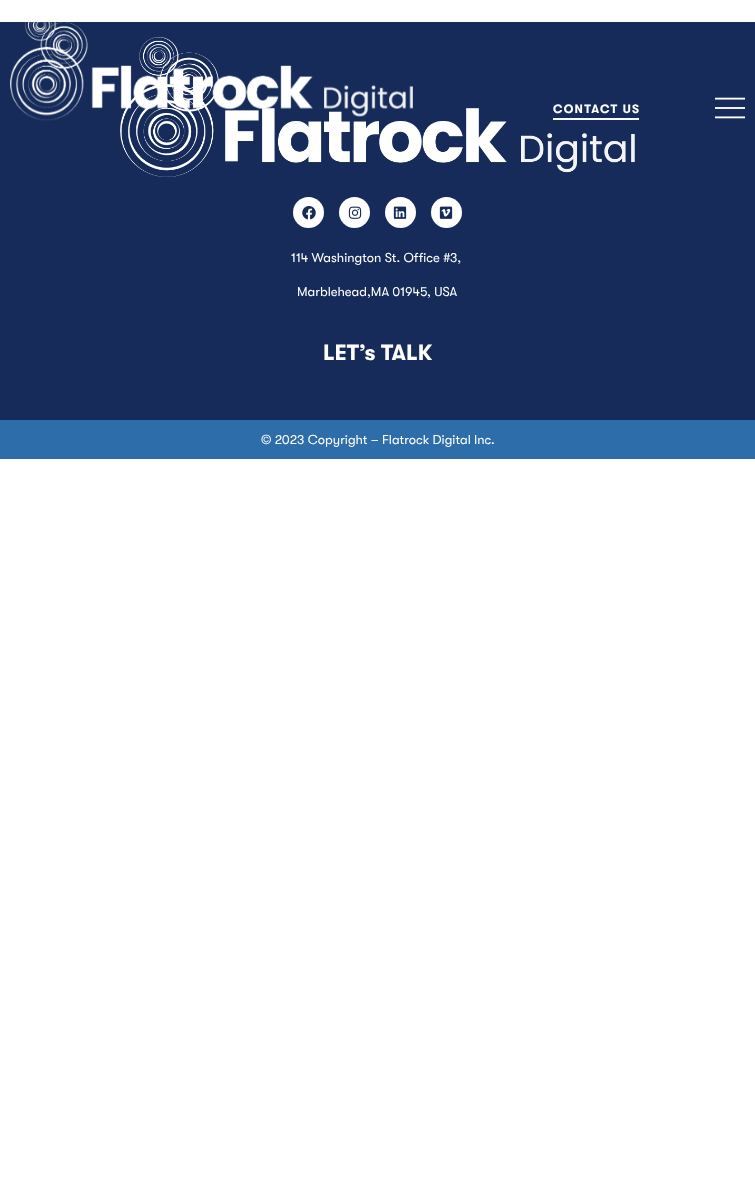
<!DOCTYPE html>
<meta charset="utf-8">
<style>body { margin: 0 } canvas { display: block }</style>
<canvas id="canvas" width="755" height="1190"></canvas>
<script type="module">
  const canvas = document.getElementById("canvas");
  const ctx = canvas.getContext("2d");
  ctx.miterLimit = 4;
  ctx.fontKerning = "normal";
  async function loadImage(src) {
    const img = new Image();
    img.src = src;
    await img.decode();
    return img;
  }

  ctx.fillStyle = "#ffffff";
  ctx.fillRect(0, 0, 755, 1190);
  ctx.fillStyle = "#162b59";
  ctx.fillRect(0, 22, 755, 398);
  ctx.drawImage(await loadImage("img3.png"), 120, 37, 515, 140);
  ctx.drawImage(await loadImage("img1.png"), 10, 22, 403, 99);
  ctx.fillStyle = "#ffffff";
  ctx.fillRect(553, 118, 86, 2);
  ctx.letterSpacing = "1.25px";
  ctx.font = "bold 12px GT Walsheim";
  ctx.fillText("CONTACT US", 553, 113);
  ctx.drawImage(await loadImage("img2.png"), 715, 97, 30, 22);
  ctx.beginPath();
  ctx.arc(308.5, 212.5, 15.5, 0, Math.PI * 2);
  ctx.fill();
  ctx.drawImage(await loadImage("img4.png"), 302, 206, 14, 14);
  ctx.beginPath();
  ctx.arc(354.5, 212.5, 15.5, 0, Math.PI * 2);
  ctx.fill();
  ctx.drawImage(await loadImage("img5.png"), 348, 206, 14, 13);
  ctx.beginPath();
  ctx.arc(400.5, 212.5, 15.5, 0, Math.PI * 2);
  ctx.fill();
  ctx.drawImage(await loadImage("img6.png"), 393, 206, 14, 13);
  ctx.beginPath();
  ctx.arc(446.5, 212.5, 15.5, 0, Math.PI * 2);
  ctx.fill();
  ctx.drawImage(await loadImage("img7.png"), 439, 206, 14, 13);
  ctx.letterSpacing = "0px";
  ctx.font = "13px GT Walsheim";
  ctx.fillText("114 Washington St. Office #3,", 291, 262);
  ctx.fillText("Marblehead,MA 01945, USA", 297, 296);
  ctx.font = "bold 22px GT Walsheim";
  ctx.fillText("LET’s TALK", 323, 360);
  ctx.fillStyle = "#2d6daa";
  ctx.fillRect(0, 420, 755, 39);
  ctx.font = "13px GT Walsheim";
  ctx.fillStyle = "#ffffff";
  ctx.fillText("© 2023 Copyright – Flatrock Digital Inc.", 261, 444);
</script>
